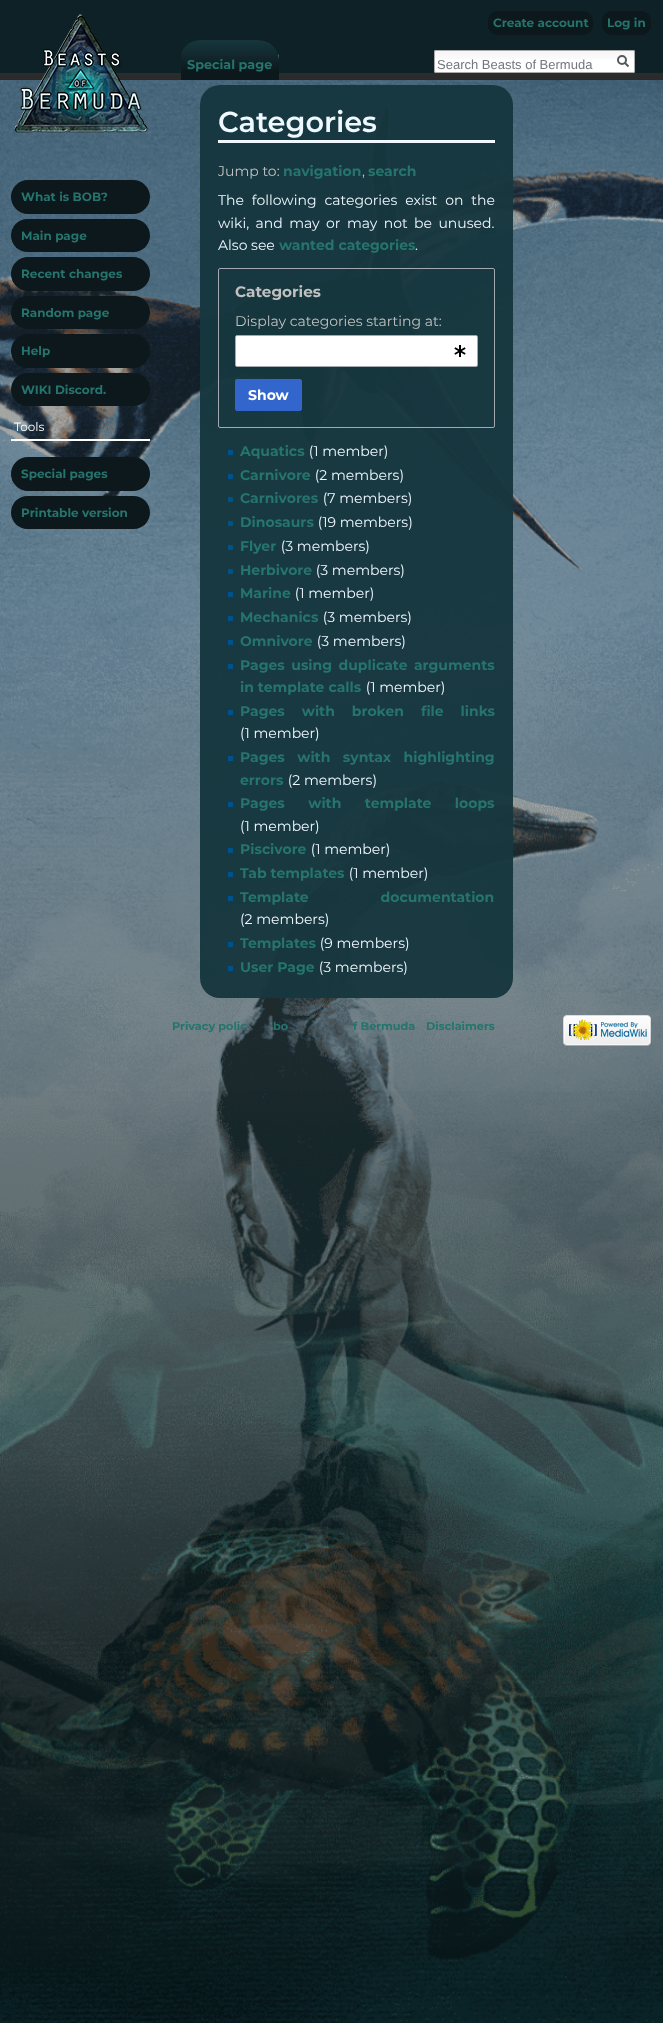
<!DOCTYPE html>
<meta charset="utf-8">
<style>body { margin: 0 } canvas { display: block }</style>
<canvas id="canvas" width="663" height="2023"></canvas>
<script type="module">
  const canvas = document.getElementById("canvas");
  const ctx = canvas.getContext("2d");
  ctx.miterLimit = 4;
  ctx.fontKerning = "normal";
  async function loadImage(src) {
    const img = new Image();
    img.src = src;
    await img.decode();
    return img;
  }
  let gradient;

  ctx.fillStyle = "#0e2126";
  ctx.fillRect(0, 0, 663, 2023);
  ctx.fillStyle = "#0c181b";
  ctx.beginPath();
  ctx.roundRect(488, 11, 105, 24, 10);
  ctx.fill();
  ctx.font = "bold 12px Montserrat";
  ctx.fillStyle = "#26746e";
  ctx.fillText("Create account", 493, 27);
  ctx.fillStyle = "#0c181b";
  ctx.beginPath();
  ctx.roundRect(602, 11, 49, 24, 10);
  ctx.fill();
  ctx.fillStyle = "#26746e";
  ctx.fillText("Log in", 607, 27);
  ctx.drawImage(await loadImage("img1.png"), 278, 54, 1, 6);
  gradient = ctx.createLinearGradient(332, 0, 332, 80);
  gradient.addColorStop(0.5, "#333333");
  gradient.addColorStop(1, "#2a2a2a");
  ctx.fillStyle = gradient;
  ctx.fillRect(0, 73, 663, 7);
  ctx.save();
  ctx.beginPath();
  ctx.roundRect(180, 40, 99, 40, [20, 20, 0, 0]);
  ctx.clip();
  ctx.fillStyle = "#0c181b";
  ctx.beginPath();
  ctx.roundRect(181, 40, 98, 40, [0, 20, 0, 0]);
  ctx.fill();
  gradient = ctx.createLinearGradient(230, 40, 230, 80);
  gradient.addColorStop(0, "rgba(23, 55, 63, 0.97)");
  gradient.addColorStop(0.8, "#0c181b");
  ctx.fillStyle = gradient;
  ctx.beginPath();
  ctx.roundRect(181, 40, 98, 40, [0, 20, 0, 0]);
  ctx.fill();
  ctx.restore();
  ctx.font = "bold 12.75px Montserrat";
  ctx.fillStyle = "#26746e";
  ctx.fillText("Special page", 187, 69);
  ctx.fillStyle = "#ffffff";
  ctx.beginPath();
  ctx.roundRect(434, 50, 201, 23, 2);
  ctx.fill();
  ctx.drawImage(await loadImage("img2.png"), 434, 51, 201, 8);
  ctx.beginPath();
  ctx.roundRect(434.5, 50.5, 200, 22, 1.5);
  ctx.strokeStyle = "#aaaaaa";
  ctx.stroke();
  ctx.font = "13px Liberation Sans";
  ctx.fillStyle = "#72777d";
  ctx.fillText("Search Beasts of Bermuda", 437, 69);
  ctx.beginPath();
  ctx.moveTo(628.5, 66.5);
  ctx.lineTo(624.5, 62.5);
  ctx.strokeStyle = "#54595d";
  ctx.lineWidth = 2;
  ctx.stroke();
  ctx.beginPath();
  ctx.arc(622, 60, 4, 0, Math.PI * 2);
  ctx.stroke();
  ctx.drawImage(await loadImage("img4.png"), 0, 80, 663, 1916);
  ctx.drawImage(await loadImage("img3.png"), 14, 14, 134, 119);
  ctx.fillStyle = "#0c181b";
  ctx.beginPath();
  ctx.roundRect(11, 180, 139, 34, 17);
  ctx.fill();
  ctx.font = "bold 12px Montserrat";
  ctx.fillStyle = "#26746e";
  ctx.fillText("What is BOB?", 21, 201);
  ctx.fillStyle = "#0c181b";
  ctx.beginPath();
  ctx.roundRect(11, 219, 139, 33, 16.5);
  ctx.fill();
  ctx.fillStyle = "#26746e";
  ctx.fillText("Main page", 21, 240);
  ctx.fillStyle = "#0c181b";
  ctx.beginPath();
  ctx.roundRect(11, 257, 139, 34, 17);
  ctx.fill();
  ctx.fillStyle = "#26746e";
  ctx.fillText("Recent changes", 21, 278);
  ctx.fillStyle = "#0c181b";
  ctx.beginPath();
  ctx.roundRect(11, 296, 139, 33, 16.5);
  ctx.fill();
  ctx.fillStyle = "#26746e";
  ctx.fillText("Random page", 21, 317);
  ctx.fillStyle = "#0c181b";
  ctx.beginPath();
  ctx.roundRect(11, 334, 139, 34, 17);
  ctx.fill();
  ctx.fillStyle = "#26746e";
  ctx.fillText("Help", 21, 355);
  ctx.fillStyle = "#0c181b";
  ctx.beginPath();
  ctx.roundRect(11, 373, 139, 33, 16.5);
  ctx.fill();
  ctx.fillStyle = "#26746e";
  ctx.fillText("WIKI Discord.", 21, 394);
  ctx.fillStyle = "#ffffff";
  ctx.fillRect(11, 439, 139, 2);
  ctx.font = "12px Montserrat";
  ctx.fillText("Tools", 14, 431);
  ctx.fillStyle = "#0c181b";
  ctx.beginPath();
  ctx.roundRect(11, 457, 139, 34, 17);
  ctx.fill();
  ctx.font = "bold 12px Montserrat";
  ctx.fillStyle = "#26746e";
  ctx.fillText("Special pages", 21, 478);
  ctx.fillStyle = "#0c181b";
  ctx.beginPath();
  ctx.roundRect(11, 496, 139, 33, 16.5);
  ctx.fill();
  ctx.fillStyle = "#26746e";
  ctx.fillText("Printable version", 21, 517);
  ctx.fillStyle = "rgba(23, 55, 63, 0.97)";
  ctx.beginPath();
  ctx.roundRect(200, 85, 313, 913, 20);
  ctx.fill();
  ctx.fillStyle = "#f0f8ff";
  ctx.fillRect(218, 140, 277, 3);
  ctx.font = "600 28.75px Montserrat";
  ctx.fillText("Categories", 218, 132);
  ctx.font = "14px Montserrat";
  ctx.fillStyle = "#c1c1c1";
  ctx.fillText("Jump to:", 218, 176);
  ctx.font = "bold 14px Montserrat";
  ctx.fillStyle = "#26746e";
  ctx.fillText("navigation", 283, 176);
  ctx.font = "14px Montserrat";
  ctx.fillStyle = "#c1c1c1";
  ctx.fillText(",", 362, 176);
  ctx.font = "bold 14px Montserrat";
  ctx.fillStyle = "#26746e";
  ctx.fillText("search", 368, 176);
  ctx.wordSpacing = "4.25px";
  ctx.font = "14px Montserrat";
  ctx.fillStyle = "#f0f8ff";
  ctx.fillText("The following categories exist on the", 218, 205);
  ctx.wordSpacing = "2.75px";
  ctx.fillText("wiki, and may or may not be unused.", 218, 228);
  ctx.wordSpacing = "0px";
  ctx.fillText("Also see", 218, 250);
  ctx.font = "bold 14px Montserrat";
  ctx.fillStyle = "#26746e";
  ctx.fillText("wanted categories", 279, 250);
  ctx.font = "14px Montserrat";
  ctx.fillStyle = "#f0f8ff";
  ctx.fillText(".", 415, 250);
  ctx.beginPath();
  ctx.roundRect(218.5, 268.5, 276, 159, 1.5);
  ctx.strokeStyle = "#a2a9b1";
  ctx.lineWidth = 1;
  ctx.stroke();
  ctx.font = "bold 15.25px Montserrat";
  ctx.fillStyle = "#c1c1c1";
  ctx.fillText("Categories", 235, 297);
  ctx.font = "14px Montserrat";
  ctx.fillText("Display categories starting at:", 235, 326);
  ctx.fillStyle = "#ffffff";
  ctx.beginPath();
  ctx.roundRect(235.5, 335.5, 242, 31, 1.5);
  ctx.fill();
  ctx.stroke();
  ctx.drawImage(await loadImage("img5.png"), 454, 345, 12, 12);
  ctx.fillStyle = "#3366cc";
  ctx.beginPath();
  ctx.roundRect(235.5, 379.5, 66, 31, 1.5);
  ctx.fill();
  ctx.strokeStyle = "#3366cc";
  ctx.stroke();
  ctx.font = "bold 14px Montserrat";
  ctx.fillStyle = "#ffffff";
  ctx.fillText("Show", 248, 400);
  ctx.fillStyle = "#00528c";
  ctx.fillRect(228, 450, 5, 5);
  ctx.fillStyle = "#26746e";
  ctx.fillText("Aquatics", 240, 456);
  ctx.font = "14px Montserrat";
  ctx.fillStyle = "#f0f8ff";
  ctx.fillText(" (1 member)", 305, 456);
  ctx.fillStyle = "#00528c";
  ctx.fillRect(228, 474, 5, 5);
  ctx.font = "bold 14px Montserrat";
  ctx.fillStyle = "#26746e";
  ctx.fillText("Carnivore", 240, 480);
  ctx.font = "14px Montserrat";
  ctx.fillStyle = "#f0f8ff";
  ctx.fillText(" (2 members)", 311, 480);
  ctx.fillStyle = "#00528c";
  ctx.fillRect(228, 497, 5, 5);
  ctx.font = "bold 14px Montserrat";
  ctx.fillStyle = "#26746e";
  ctx.fillText("Carnivores", 240, 503);
  ctx.font = "14px Montserrat";
  ctx.fillStyle = "#f0f8ff";
  ctx.fillText(" (7 members)", 319, 503);
  ctx.fillStyle = "#00528c";
  ctx.fillRect(228, 521, 5, 5);
  ctx.font = "bold 14px Montserrat";
  ctx.fillStyle = "#26746e";
  ctx.fillText("Dinosaurs", 240, 527);
  ctx.font = "14px Montserrat";
  ctx.fillStyle = "#f0f8ff";
  ctx.fillText(" (19 members)", 314, 527);
  ctx.fillStyle = "#00528c";
  ctx.fillRect(228, 545, 5, 5);
  ctx.font = "bold 14px Montserrat";
  ctx.fillStyle = "#26746e";
  ctx.fillText("Flyer", 240, 551);
  ctx.font = "14px Montserrat";
  ctx.fillStyle = "#f0f8ff";
  ctx.fillText(" (3 members)", 277, 551);
  ctx.fillStyle = "#00528c";
  ctx.fillRect(228, 569, 5, 5);
  ctx.font = "bold 14px Montserrat";
  ctx.fillStyle = "#26746e";
  ctx.fillText("Herbivore", 240, 575);
  ctx.font = "14px Montserrat";
  ctx.fillStyle = "#f0f8ff";
  ctx.fillText(" (3 members)", 312, 575);
  ctx.fillStyle = "#00528c";
  ctx.fillRect(228, 592, 5, 5);
  ctx.font = "bold 14px Montserrat";
  ctx.fillStyle = "#26746e";
  ctx.fillText("Marine", 240, 598);
  ctx.font = "14px Montserrat";
  ctx.fillStyle = "#f0f8ff";
  ctx.fillText(" (1 member)", 291, 598);
  ctx.fillStyle = "#00528c";
  ctx.fillRect(228, 616, 5, 5);
  ctx.font = "bold 14px Montserrat";
  ctx.fillStyle = "#26746e";
  ctx.fillText("Mechanics", 240, 622);
  ctx.font = "14px Montserrat";
  ctx.fillStyle = "#f0f8ff";
  ctx.fillText(" (3 members)", 319, 622);
  ctx.fillStyle = "#00528c";
  ctx.fillRect(228, 640, 5, 5);
  ctx.font = "bold 14px Montserrat";
  ctx.fillStyle = "#26746e";
  ctx.fillText("Omnivore", 240, 646);
  ctx.font = "14px Montserrat";
  ctx.fillStyle = "#f0f8ff";
  ctx.fillText(" (3 members)", 313, 646);
  ctx.fillStyle = "#00528c";
  ctx.fillRect(228, 664, 5, 5);
  ctx.wordSpacing = "2.5px";
  ctx.font = "bold 14px Montserrat";
  ctx.fillStyle = "#26746e";
  ctx.fillText("Pages using duplicate arguments", 240, 670);
  ctx.wordSpacing = "0px";
  ctx.fillText("in template calls", 240, 692);
  ctx.font = "14px Montserrat";
  ctx.fillStyle = "#f0f8ff";
  ctx.fillText(" (1 member)", 362, 692);
  ctx.fillStyle = "#00528c";
  ctx.fillRect(228, 710, 5, 5);
  ctx.wordSpacing = "13px";
  ctx.font = "bold 14px Montserrat";
  ctx.fillStyle = "#26746e";
  ctx.fillText("Pages with broken file links", 240, 716);
  ctx.wordSpacing = "0px";
  ctx.font = "14px Montserrat";
  ctx.fillStyle = "#f0f8ff";
  ctx.fillText("(1 member)", 240, 738);
  ctx.fillStyle = "#00528c";
  ctx.fillRect(228, 756, 5, 5);
  ctx.wordSpacing = "8.5px";
  ctx.font = "bold 14px Montserrat";
  ctx.fillStyle = "#26746e";
  ctx.fillText("Pages with syntax highlighting", 240, 762);
  ctx.wordSpacing = "0px";
  ctx.fillText("errors", 240, 785);
  ctx.font = "14px Montserrat";
  ctx.fillStyle = "#f0f8ff";
  ctx.fillText(" (2 members)", 284, 785);
  ctx.fillStyle = "#00528c";
  ctx.fillRect(228, 802, 5, 5);
  ctx.wordSpacing = "19.5px";
  ctx.font = "bold 14px Montserrat";
  ctx.fillStyle = "#26746e";
  ctx.fillText("Pages with template loops", 240, 808);
  ctx.wordSpacing = "0px";
  ctx.font = "14px Montserrat";
  ctx.fillStyle = "#f0f8ff";
  ctx.fillText("(1 member)", 240, 831);
  ctx.fillStyle = "#00528c";
  ctx.fillRect(228, 848, 5, 5);
  ctx.font = "bold 14px Montserrat";
  ctx.fillStyle = "#26746e";
  ctx.fillText("Piscivore", 240, 854);
  ctx.font = "14px Montserrat";
  ctx.fillStyle = "#f0f8ff";
  ctx.fillText(" (1 member)", 307, 854);
  ctx.fillStyle = "#00528c";
  ctx.fillRect(228, 872, 5, 5);
  ctx.font = "bold 14px Montserrat";
  ctx.fillStyle = "#26746e";
  ctx.fillText("Tab templates", 240, 878);
  ctx.font = "14px Montserrat";
  ctx.fillStyle = "#f0f8ff";
  ctx.fillText(" (1 member)", 345, 878);
  ctx.fillStyle = "#00528c";
  ctx.fillRect(228, 896, 5, 5);
  ctx.wordSpacing = "68px";
  ctx.font = "bold 14px Montserrat";
  ctx.fillStyle = "#26746e";
  ctx.fillText("Template documentation", 240, 902);
  ctx.wordSpacing = "0px";
  ctx.font = "14px Montserrat";
  ctx.fillStyle = "#f0f8ff";
  ctx.fillText("(2 members)", 240, 924);
  ctx.fillStyle = "#00528c";
  ctx.fillRect(228, 942, 5, 5);
  ctx.font = "bold 14px Montserrat";
  ctx.fillStyle = "#26746e";
  ctx.fillText("Templates", 240, 948);
  ctx.font = "14px Montserrat";
  ctx.fillStyle = "#f0f8ff";
  ctx.fillText(" (9 members)", 316, 948);
  ctx.fillStyle = "#00528c";
  ctx.fillRect(228, 966, 5, 5);
  ctx.font = "bold 14px Montserrat";
  ctx.fillStyle = "#26746e";
  ctx.fillText("User Page", 240, 972);
  ctx.font = "14px Montserrat";
  ctx.fillStyle = "#f0f8ff";
  ctx.fillText(" (3 members)", 315, 972);
  ctx.font = "bold 11.25px Montserrat";
  ctx.fillStyle = "#26746e";
  ctx.fillText("Privacy polic", 172, 1030);
  ctx.fillText("bo", 273, 1030);
  ctx.fillText("f Bermuda", 353, 1030);
  ctx.fillText("Disclaimers", 426, 1030);
  ctx.drawImage(await loadImage("img6.png"), 563, 1015, 88, 31);
  ctx.drawImage(await loadImage("img7.png"), 0, 1091, 663, 932);
</script>
